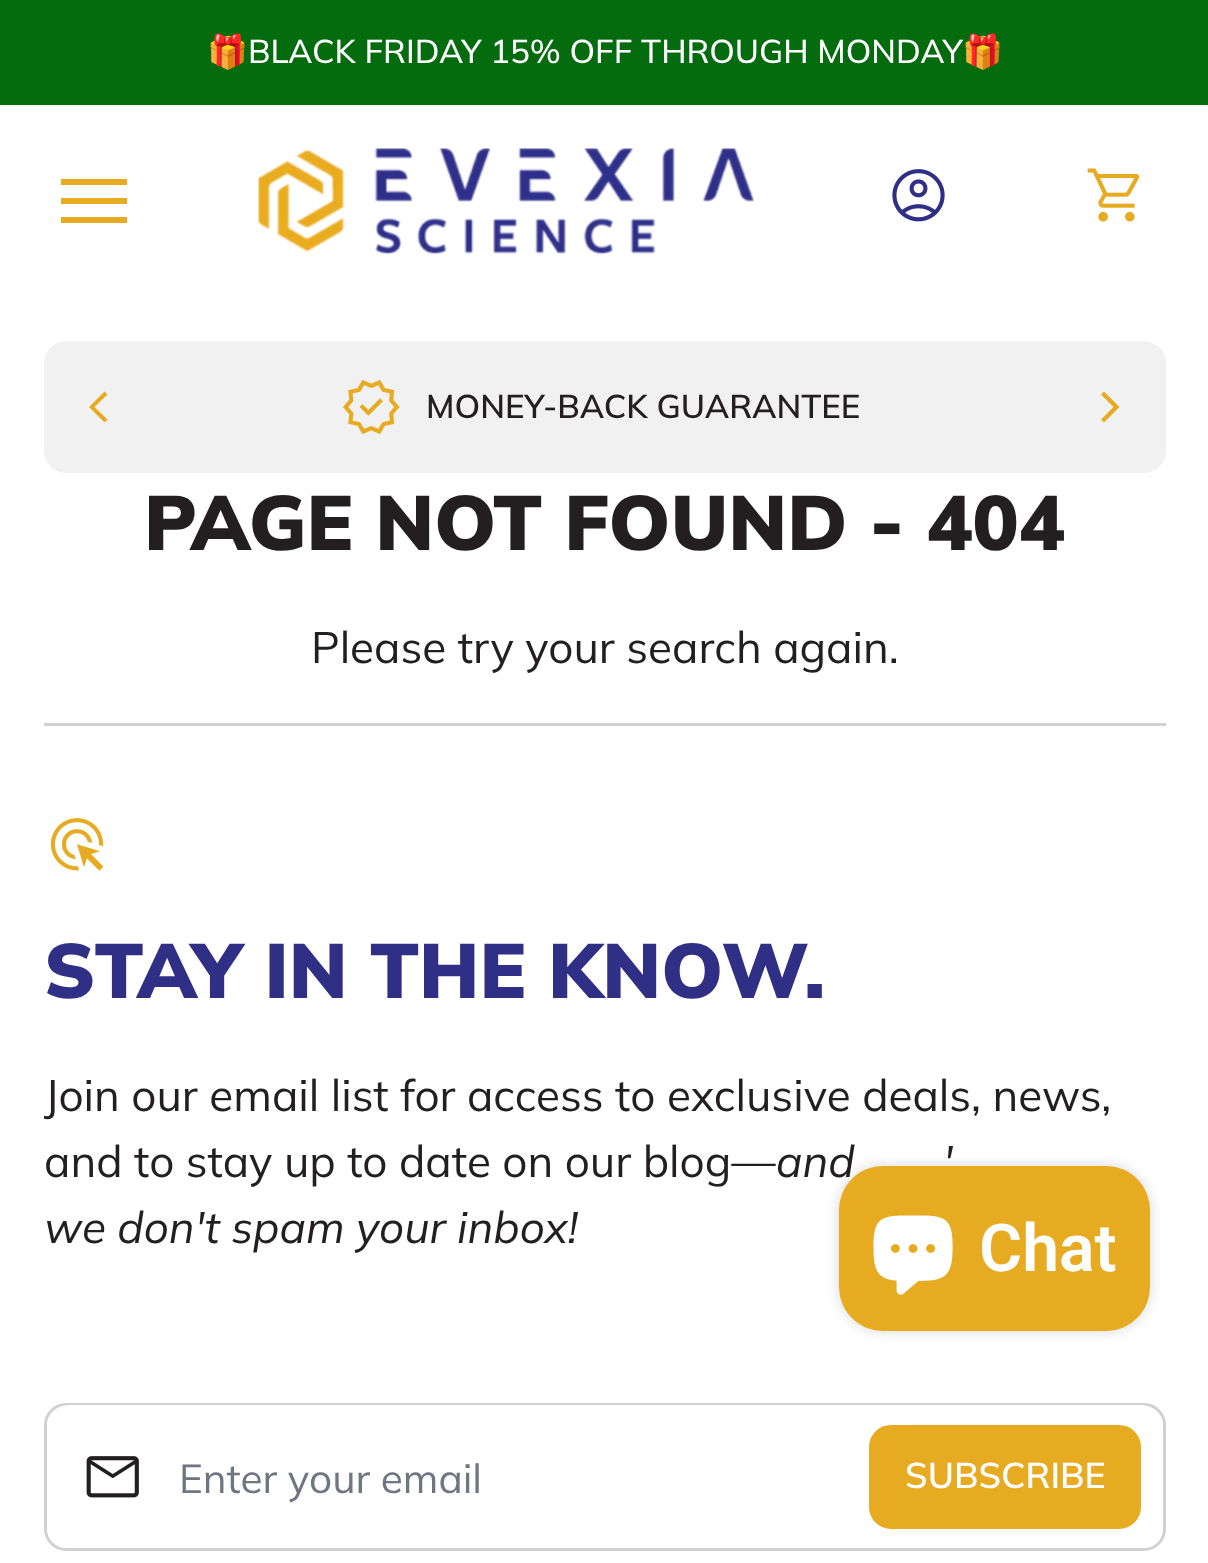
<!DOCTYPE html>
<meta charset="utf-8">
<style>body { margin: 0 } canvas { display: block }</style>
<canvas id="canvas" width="1208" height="1563"></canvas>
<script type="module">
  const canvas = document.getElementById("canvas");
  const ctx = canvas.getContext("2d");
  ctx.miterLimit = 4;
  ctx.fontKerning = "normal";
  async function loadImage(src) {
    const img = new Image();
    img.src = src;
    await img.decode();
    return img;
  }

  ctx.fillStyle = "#ffffff";
  ctx.fillRect(0, 0, 1208, 1563);
  ctx.fillStyle = "#056b0f";
  ctx.fillRect(0, 0, 1208, 105);
  ctx.font = "33px Noto Color Emoji";
  ctx.fillStyle = "#ffffff";
  ctx.fillText("🎁", 207, 63);
  ctx.font = "500 33px Muli";
  ctx.fillText("BLACK FRIDAY 15% OFF THROUGH MONDAY", 248, 63);
  ctx.font = "33px Noto Color Emoji";
  ctx.fillText("🎁", 962, 63);
  ctx.fillStyle = "#e7ab22";
  ctx.fillRect(61, 179, 66, 6);
  ctx.fillRect(61, 198, 66, 6);
  ctx.fillRect(61, 217, 66, 6);
  ctx.drawImage(await loadImage("img1.png"), 258, 148, 496, 106);
  ctx.drawImage(await loadImage("img2.png"), 892, 169, 53, 53);
  ctx.drawImage(await loadImage("img3.png"), 1087, 168, 53, 54);
  ctx.fillStyle = "#f1f1f1";
  ctx.beginPath();
  ctx.roundRect(44, 341, 1122, 132, 22);
  ctx.fill();
  ctx.fillStyle = "#e7ab22";
  ctx.beginPath();
  ctx.moveTo(104.5, 422.5);
  ctx.lineTo(89, 407);
  ctx.lineTo(104.5, 391.5);
  ctx.lineTo(107.5, 394.5);
  ctx.lineTo(94.5, 407);
  ctx.lineTo(107.5, 419.5);
  ctx.closePath();
  ctx.fill();
  ctx.drawImage(await loadImage("img4.png"), 343, 379, 57, 56);
  ctx.font = "600 33px Muli";
  ctx.fillStyle = "#231f20";
  ctx.fillText("MONEY-BACK GUARANTEE", 426, 418);
  ctx.fillStyle = "#e7ab22";
  ctx.beginPath();
  ctx.moveTo(1113.5, 407);
  ctx.lineTo(1101, 394.5);
  ctx.lineTo(1104, 391.5);
  ctx.lineTo(1119.5, 407);
  ctx.lineTo(1104, 422.5);
  ctx.lineTo(1101, 419.5);
  ctx.closePath();
  ctx.fill();
  ctx.font = "900 77px Muli";
  ctx.fillStyle = "#231f20";
  ctx.fillText("PAGE NOT FOUND - 404", 144, 550);
  ctx.font = "44px Muli";
  ctx.fillText("Please try your search again.", 311, 663);
  ctx.fillStyle = "#d1d1d1";
  ctx.fillRect(44, 723, 1122, 3);
  ctx.drawImage(await loadImage("img5.png"), 50, 818, 54, 53);
  ctx.font = "900 77px Muli";
  ctx.fillStyle = "#2f2f86";
  ctx.fillText("STAY IN THE KNOW.", 44, 998);
  ctx.font = "44px Muli";
  ctx.fillStyle = "#231f20";
  ctx.fillText("Join our email list for access to exclusive deals, news,", 44, 1111);
  ctx.fillText("and to stay up to date on our blog—", 44, 1177);
  ctx.font = "italic 44px Muli";
  ctx.fillText("and", 776, 1177);
  ctx.fillText("'", 943, 1177);
  ctx.fillText("we don't spam your inbox!", 44, 1243);
  ctx.beginPath();
  ctx.roundRect(45.5, 1404.5, 1119, 145, 20.5);
  ctx.strokeStyle = "#d1d1d1";
  ctx.lineWidth = 3;
  ctx.stroke();
  ctx.fillStyle = "#ffffff";
  ctx.beginPath();
  ctx.roundRect(47, 1405, 1116, 143, 22);
  ctx.fill();
  ctx.drawImage(await loadImage("img6.png"), 86, 1456, 53, 42);
  ctx.font = "40.5px Muli";
  ctx.fillStyle = "#6f7581";
  ctx.fillText("Enter your email", 179, 1493);
  ctx.fillStyle = "#e7ab22";
  ctx.beginPath();
  ctx.roundRect(870.5, 1426.5, 269, 101, 20.5);
  ctx.fill();
  ctx.strokeStyle = "#e7ab22";
  ctx.stroke();
  ctx.font = "600 35.75px Muli";
  ctx.fillStyle = "#ffffff";
  ctx.fillText("SUBSCRIBE", 905, 1488);
  ctx.fillStyle = "rgba(0, 0, 0, 0.15)";
  ctx.filter = "blur(7px)";
  ctx.beginPath();
  ctx.roundRect(839, 1166, 311, 165, 44);
  ctx.fill();
  ctx.filter = "none";
  ctx.fillStyle = "#e7ab22";
  ctx.beginPath();
  ctx.roundRect(839, 1166, 311, 165, 44);
  ctx.fill();
  ctx.drawImage(await loadImage("img7.png"), 873, 1215, 80, 80);
  ctx.font = "600 66px Roboto";
  ctx.fillStyle = "#ffffff";
  ctx.fillText("Chat", 979, 1271);
</script>
